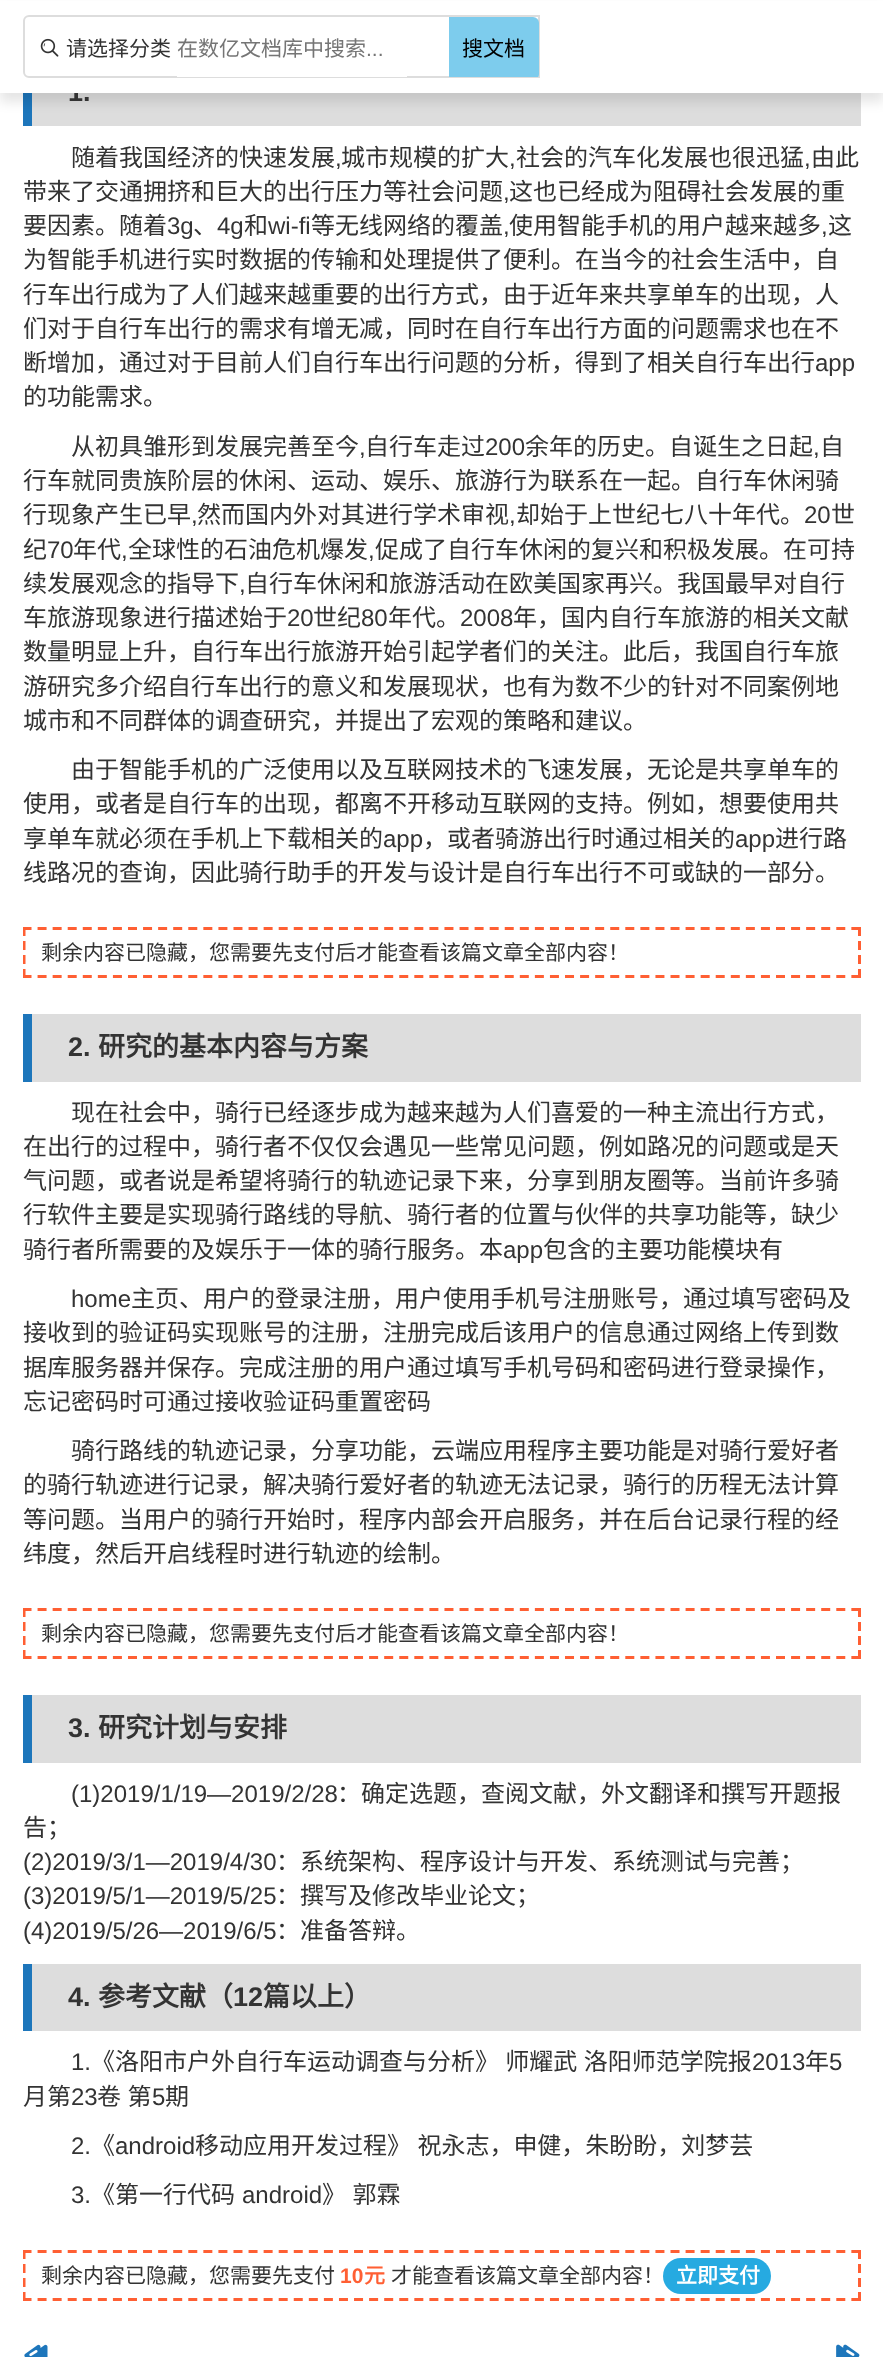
<!DOCTYPE html>
<meta charset="utf-8">
<style>body { margin: 0 } canvas { display: block }</style>
<canvas id="canvas" width="883" height="2357"></canvas>
<script type="module">
  const canvas = document.getElementById("canvas");
  const ctx = canvas.getContext("2d");
  ctx.miterLimit = 4;
  ctx.fontKerning = "normal";
  async function loadImage(src) {
    const img = new Image();
    img.src = src;
    await img.decode();
    return img;
  }

  ctx.fillStyle = "#ffffff";
  ctx.fillRect(0, 0, 883, 2357);
  ctx.fillStyle = "#dddddd";
  ctx.fillRect(32, 93, 829, 33);
  ctx.fillStyle = "#1d76bb";
  ctx.fillRect(23, 93, 9, 33);
  ctx.fillStyle = "rgba(0, 0, 0, 0.1)";
  ctx.filter = "blur(6px)";
  ctx.beginPath();
  ctx.rect(0, 9, 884, 93);
  ctx.fill();
  ctx.filter = "none";
  ctx.font = "bold 27px Liberation Sans";
  ctx.fillStyle = "#333333";
  ctx.fillText("1.", 68, 101);
  ctx.fillStyle = "#ffffff";
  ctx.fillRect(0, 1, 883, 92);
  ctx.beginPath();
  ctx.roundRect(24, 16, 515, 61, [5, 0, 0, 5]);
  ctx.strokeStyle = "#dddddd";
  ctx.lineWidth = 2;
  ctx.stroke();
  ctx.drawImage(await loadImage("img1.png"), 40, 38, 19, 19);
  ctx.font = "21px Noto Sans CJK SC";
  ctx.fillStyle = "#333333";
  ctx.fillText("请选择分类", 66, 56);
  ctx.fillStyle = "#ffffff";
  ctx.fillRect(177, 76, 230, 1);
  ctx.fillStyle = "#757575";
  ctx.fillText("在数亿文档库中搜索", 177, 56);
  ctx.font = "21px Liberation Sans";
  ctx.fillText("...", 366, 56);
  ctx.save();
  ctx.beginPath();
  ctx.roundRect(24, 17, 515, 60, [5, 0, 0, 5]);
  ctx.clip();
  ctx.fillStyle = "#7dcced";
  ctx.beginPath();
  ctx.roundRect(449, 17, 90, 63, [0, 6, 6, 0]);
  ctx.fill();
  ctx.restore();
  ctx.font = "21px Noto Sans CJK SC";
  ctx.fillStyle = "#000000";
  ctx.fillText("搜文档", 462, 56);
  ctx.font = "24px Noto Sans CJK SC";
  ctx.fillStyle = "#333333";
  ctx.fillText("随着我国经济的快速发展", 71, 166);
  ctx.font = "24px Liberation Sans";
  ctx.fillText(",", 335, 166);
  ctx.font = "24px Noto Sans CJK SC";
  ctx.fillText("城市规模的扩大", 341, 166);
  ctx.font = "24px Liberation Sans";
  ctx.fillText(",", 509, 166);
  ctx.font = "24px Noto Sans CJK SC";
  ctx.fillText("社会的汽车化发展也很迅猛", 516, 166);
  ctx.font = "24px Liberation Sans";
  ctx.fillText(",", 804, 166);
  ctx.font = "24px Noto Sans CJK SC";
  ctx.fillText("由此", 811, 166);
  ctx.fillText("带来了交通拥挤和巨大的出行压力等社会问题", 23, 200);
  ctx.font = "24px Liberation Sans";
  ctx.fillText(",", 503, 200);
  ctx.font = "24px Noto Sans CJK SC";
  ctx.fillText("这也已经成为阻碍社会发展的重", 509, 200);
  ctx.fillText("要因素。随着", 23, 234);
  ctx.font = "24px Liberation Sans";
  ctx.fillText("3g", 167, 234);
  ctx.font = "24px Noto Sans CJK SC";
  ctx.fillText("、", 193, 234);
  ctx.font = "24px Liberation Sans";
  ctx.fillText("4g", 217, 234);
  ctx.font = "24px Noto Sans CJK SC";
  ctx.fillText("和", 244, 234);
  ctx.font = "24px Liberation Sans";
  ctx.fillText("wi-fi", 268, 234);
  ctx.font = "24px Noto Sans CJK SC";
  ctx.fillText("等无线网络的覆盖", 311, 234);
  ctx.font = "24px Liberation Sans";
  ctx.fillText(",", 503, 234);
  ctx.font = "24px Noto Sans CJK SC";
  ctx.fillText("使用智能手机的用户越来越多", 509, 234);
  ctx.font = "24px Liberation Sans";
  ctx.fillText(",", 821, 234);
  ctx.font = "24px Noto Sans CJK SC";
  ctx.fillText("这", 828, 234);
  ctx.fillText("为智能手机进行实时数据的传输和处理提供了便利。在当今的社会生活中，自", 23, 268);
  ctx.fillText("行车出行成为了人们越来越重要的出行方式，由于近年来共享单车的出现，人", 23, 303);
  ctx.fillText("们对于自行车出行的需求有增无减，同时在自行车出行方面的问题需求也在不", 23, 337);
  ctx.fillText("断增加，通过对于目前人们自行车出行问题的分析，得到了相关自行车出行", 23, 371);
  ctx.font = "24px Liberation Sans";
  ctx.fillText("app", 815, 371);
  ctx.font = "24px Noto Sans CJK SC";
  ctx.fillText("的功能需求。", 23, 405);
  ctx.fillText("从初具雏形到发展完善至今", 71, 455);
  ctx.font = "24px Liberation Sans";
  ctx.fillText(",", 359, 455);
  ctx.font = "24px Noto Sans CJK SC";
  ctx.fillText("自行车走过", 365, 455);
  ctx.font = "24px Liberation Sans";
  ctx.fillText("200", 485, 455);
  ctx.font = "24px Noto Sans CJK SC";
  ctx.fillText("余年的历史。自诞生之日起", 525, 455);
  ctx.font = "24px Liberation Sans";
  ctx.fillText(",", 813, 455);
  ctx.font = "24px Noto Sans CJK SC";
  ctx.fillText("自", 820, 455);
  ctx.fillText("行车就同贵族阶层的休闲、运动、娱乐、旅游行为联系在一起。自行车休闲骑", 23, 489);
  ctx.fillText("行现象产生已早", 23, 523);
  ctx.font = "24px Liberation Sans";
  ctx.fillText(",", 191, 523);
  ctx.font = "24px Noto Sans CJK SC";
  ctx.fillText("然而国内外对其进行学术审视", 197, 523);
  ctx.font = "24px Liberation Sans";
  ctx.fillText(",", 509, 523);
  ctx.font = "24px Noto Sans CJK SC";
  ctx.fillText("却始于上世纪七八十年代。", 516, 523);
  ctx.font = "24px Liberation Sans";
  ctx.fillText("20", 804, 523);
  ctx.font = "24px Noto Sans CJK SC";
  ctx.fillText("世", 831, 523);
  ctx.fillText("纪", 23, 558);
  ctx.font = "24px Liberation Sans";
  ctx.fillText("70", 47, 558);
  ctx.font = "24px Noto Sans CJK SC";
  ctx.fillText("年代", 73, 558);
  ctx.font = "24px Liberation Sans";
  ctx.fillText(",", 121, 558);
  ctx.font = "24px Noto Sans CJK SC";
  ctx.fillText("全球性的石油危机爆发", 128, 558);
  ctx.font = "24px Liberation Sans";
  ctx.fillText(",", 368, 558);
  ctx.font = "24px Noto Sans CJK SC";
  ctx.fillText("促成了自行车休闲的复兴和积极发展。在可持", 375, 558);
  ctx.fillText("续发展观念的指导下", 23, 592);
  ctx.font = "24px Liberation Sans";
  ctx.fillText(",", 239, 592);
  ctx.font = "24px Noto Sans CJK SC";
  ctx.fillText("自行车休闲和旅游活动在欧美国家再兴。我国最早对自行", 245, 592);
  ctx.fillText("车旅游现象进行描述始于", 23, 626);
  ctx.font = "24px Liberation Sans";
  ctx.fillText("20", 287, 626);
  ctx.font = "24px Noto Sans CJK SC";
  ctx.fillText("世纪", 313, 626);
  ctx.font = "24px Liberation Sans";
  ctx.fillText("80", 361, 626);
  ctx.font = "24px Noto Sans CJK SC";
  ctx.fillText("年代。", 388, 626);
  ctx.font = "24px Liberation Sans";
  ctx.fillText("2008", 460, 626);
  ctx.font = "24px Noto Sans CJK SC";
  ctx.fillText("年，国内自行车旅游的相关文献", 513, 626);
  ctx.fillText("数量明显上升，自行车出行旅游开始引起学者们的关注。此后，我国自行车旅", 23, 660);
  ctx.fillText("游研究多介绍自行车出行的意义和发展现状，也有为数不少的针对不同案例地", 23, 695);
  ctx.fillText("城市和不同群体的调查研究，并提出了宏观的策略和建议。", 23, 729);
  ctx.fillText("由于智能手机的广泛使用以及互联网技术的飞速发展，无论是共享单车的", 71, 778);
  ctx.fillText("使用，或者是自行车的出现，都离不开移动互联网的支持。例如，想要使用共", 23, 812);
  ctx.fillText("享单车就必须在手机上下载相关的", 23, 847);
  ctx.font = "24px Liberation Sans";
  ctx.fillText("app", 383, 847);
  ctx.font = "24px Noto Sans CJK SC";
  ctx.fillText("，或者骑游出行时通过相关的", 423, 847);
  ctx.font = "24px Liberation Sans";
  ctx.fillText("app", 735, 847);
  ctx.font = "24px Noto Sans CJK SC";
  ctx.fillText("进行路", 775, 847);
  ctx.fillText("线路况的查询，因此骑行助手的开发与设计是自行车出行不可或缺的一部分。", 23, 881);
  ctx.save();
  ctx.beginPath();
  ctx.rect(23, 44, 838, 2293);
  ctx.clip();
  ctx.beginPath();
  ctx.moveTo(22.5, 928.5);
  ctx.lineTo(861, 928.5);
  ctx.strokeStyle = "#ff5f33";
  ctx.lineWidth = 3;
  ctx.setLineDash([9, 6.07]);
  ctx.stroke();
  ctx.restore();
  ctx.beginPath();
  ctx.moveTo(859.5, 927);
  ctx.lineTo(859.5, 978);
  ctx.strokeStyle = "#ff5f33";
  ctx.lineWidth = 3;
  ctx.setLineDash([9, 5]);
  ctx.stroke();
  ctx.save();
  ctx.beginPath();
  ctx.rect(23, 44, 838, 2293);
  ctx.clip();
  ctx.beginPath();
  ctx.moveTo(22.5, 976.5);
  ctx.lineTo(861, 976.5);
  ctx.setLineDash([9, 6.07]);
  ctx.stroke();
  ctx.beginPath();
  ctx.moveTo(24, 927);
  ctx.lineTo(24, 978);
  ctx.setLineDash([9, 5]);
  ctx.stroke();
  ctx.restore();
  ctx.font = "21px Noto Sans CJK SC";
  ctx.fillText("剩余内容已隐藏，您需要先支付后才能查看该篇文章全部内容！", 41, 960);
  ctx.fillStyle = "#dddddd";
  ctx.fillRect(32, 1014, 829, 68);
  ctx.fillStyle = "#1d76bb";
  ctx.fillRect(23, 1014, 9, 68);
  ctx.font = "bold 27px Liberation Sans";
  ctx.fillStyle = "#333333";
  ctx.fillText("2.", 68, 1056);
  ctx.font = "bold 27px Noto Sans CJK SC";
  ctx.fillText("研究的基本内容与方案", 98, 1056);
  ctx.font = "24px Noto Sans CJK SC";
  ctx.fillText("现在社会中，骑行已经逐步成为越来越为人们喜爱的一种主流出行方式，", 71, 1121);
  ctx.fillText("在出行的过程中，骑行者不仅仅会遇见一些常见问题，例如路况的问题或是天", 23, 1155);
  ctx.fillText("气问题，或者说是希望将骑行的轨迹记录下来，分享到朋友圈等。当前许多骑", 23, 1189);
  ctx.fillText("行软件主要是实现骑行路线的导航、骑行者的位置与伙伴的共享功能等，缺少", 23, 1223);
  ctx.fillText("骑行者所需要的及娱乐于一体的骑行服务。本", 23, 1258);
  ctx.font = "24px Liberation Sans";
  ctx.fillText("app", 503, 1258);
  ctx.font = "24px Noto Sans CJK SC";
  ctx.fillText("包含的主要功能模块有", 543, 1258);
  ctx.font = "24px Liberation Sans";
  ctx.fillText("home", 71, 1307);
  ctx.font = "24px Noto Sans CJK SC";
  ctx.fillText("主页、用户的登录注册，用户使用手机号注册账号，通过填写密码及", 131, 1307);
  ctx.fillText("接收到的验证码实现账号的注册，注册完成后该用户的信息通过网络上传到数", 23, 1341);
  ctx.fillText("据库服务器并保存。完成注册的用户通过填写手机号码和密码进行登录操作，", 23, 1376);
  ctx.fillText("忘记密码时可通过接收验证码重置密码", 23, 1410);
  ctx.fillText("骑行路线的轨迹记录，分享功能，云端应用程序主要功能是对骑行爱好者", 71, 1459);
  ctx.fillText("的骑行轨迹进行记录，解决骑行爱好者的轨迹无法记录，骑行的历程无法计算", 23, 1493);
  ctx.fillText("等问题。当用户的骑行开始时，程序内部会开启服务，并在后台记录行程的经", 23, 1528);
  ctx.fillText("纬度，然后开启线程时进行轨迹的绘制。", 23, 1562);
  ctx.save();
  ctx.beginPath();
  ctx.rect(23, 44, 838, 2293);
  ctx.clip();
  ctx.beginPath();
  ctx.moveTo(22.5, 1609.5);
  ctx.lineTo(861, 1609.5);
  ctx.setLineDash([9, 6.07]);
  ctx.stroke();
  ctx.restore();
  ctx.beginPath();
  ctx.moveTo(859.5, 1608);
  ctx.lineTo(859.5, 1659);
  ctx.stroke();
  ctx.save();
  ctx.beginPath();
  ctx.rect(23, 44, 838, 2293);
  ctx.clip();
  ctx.beginPath();
  ctx.moveTo(22.5, 1657.5);
  ctx.lineTo(861, 1657.5);
  ctx.setLineDash([9, 6.07]);
  ctx.stroke();
  ctx.beginPath();
  ctx.moveTo(24, 1608);
  ctx.lineTo(24, 1659);
  ctx.setLineDash([9, 5]);
  ctx.stroke();
  ctx.restore();
  ctx.font = "21px Noto Sans CJK SC";
  ctx.fillText("剩余内容已隐藏，您需要先支付后才能查看该篇文章全部内容！", 41, 1641);
  ctx.fillStyle = "#dddddd";
  ctx.fillRect(32, 1695, 829, 68);
  ctx.fillStyle = "#1d76bb";
  ctx.fillRect(23, 1695, 9, 68);
  ctx.font = "bold 27px Liberation Sans";
  ctx.fillStyle = "#333333";
  ctx.fillText("3.", 68, 1737);
  ctx.font = "bold 27px Noto Sans CJK SC";
  ctx.fillText("研究计划与安排", 98, 1737);
  ctx.font = "24px Liberation Sans";
  ctx.fillText("(1)2019/1/19—2019/2/28", 71, 1802);
  ctx.font = "24px Noto Sans CJK SC";
  ctx.fillText("：确定选题，查阅文献，外文翻译和撰写开题报", 337, 1802);
  ctx.fillText("告；", 23, 1836);
  ctx.font = "24px Liberation Sans";
  ctx.fillText("(2)2019/3/1—2019/4/30", 23, 1870);
  ctx.font = "24px Noto Sans CJK SC";
  ctx.fillText("：系统架构、程序设计与开发、系统测试与完善；", 276, 1870);
  ctx.font = "24px Liberation Sans";
  ctx.fillText("(3)2019/5/1—2019/5/25", 23, 1904);
  ctx.font = "24px Noto Sans CJK SC";
  ctx.fillText("：撰写及修改毕业论文；", 276, 1904);
  ctx.font = "24px Liberation Sans";
  ctx.fillText("(4)2019/5/26—2019/6/5", 23, 1939);
  ctx.font = "24px Noto Sans CJK SC";
  ctx.fillText("：准备答辩。", 276, 1939);
  ctx.fillStyle = "#dddddd";
  ctx.fillRect(32, 1964, 829, 67);
  ctx.fillStyle = "#1d76bb";
  ctx.fillRect(23, 1964, 9, 67);
  ctx.font = "bold 27px Liberation Sans";
  ctx.fillStyle = "#333333";
  ctx.fillText("4.", 68, 2006);
  ctx.font = "bold 27px Noto Sans CJK SC";
  ctx.fillText("参考文献（", 98, 2006);
  ctx.font = "bold 27px Liberation Sans";
  ctx.fillText("12", 233, 2006);
  ctx.font = "bold 27px Noto Sans CJK SC";
  ctx.fillText("篇以上）", 263, 2006);
  ctx.font = "24px Liberation Sans";
  ctx.fillText("1.", 71, 2070);
  ctx.wordSpacing = "1px";
  ctx.font = "24px Noto Sans CJK SC";
  ctx.fillText("《洛阳市户外自行车运动调查与分析》 师耀武 洛阳师范学院报", 91, 2070);
  ctx.wordSpacing = "0px";
  ctx.font = "24px Liberation Sans";
  ctx.fillText("2013", 752, 2070);
  ctx.font = "24px Noto Sans CJK SC";
  ctx.fillText("年", 805, 2070);
  ctx.font = "24px Liberation Sans";
  ctx.fillText("5", 829, 2070);
  ctx.font = "24px Noto Sans CJK SC";
  ctx.fillText("月第", 23, 2105);
  ctx.font = "24px Liberation Sans";
  ctx.fillText("23", 71, 2105);
  ctx.wordSpacing = "1px";
  ctx.font = "24px Noto Sans CJK SC";
  ctx.fillText("卷 第", 97, 2105);
  ctx.wordSpacing = "0px";
  ctx.font = "24px Liberation Sans";
  ctx.fillText("5", 152, 2105);
  ctx.font = "24px Noto Sans CJK SC";
  ctx.fillText("期", 165, 2105);
  ctx.font = "24px Liberation Sans";
  ctx.fillText("2.", 71, 2154);
  ctx.font = "24px Noto Sans CJK SC";
  ctx.fillText("《", 91, 2154);
  ctx.font = "24px Liberation Sans";
  ctx.fillText("android", 115, 2154);
  ctx.wordSpacing = "1px";
  ctx.font = "24px Noto Sans CJK SC";
  ctx.fillText("移动应用开发过程》 祝永志，申健，朱盼盼，刘梦芸", 195, 2154);
  ctx.wordSpacing = "0px";
  ctx.font = "24px Liberation Sans";
  ctx.fillText("3.", 71, 2203);
  ctx.font = "24px Noto Sans CJK SC";
  ctx.fillText("《第一行代码", 91, 2203);
  ctx.font = "24px Liberation Sans";
  ctx.fillText("android", 242, 2203);
  ctx.wordSpacing = "1px";
  ctx.font = "24px Noto Sans CJK SC";
  ctx.fillText("》 郭霖", 322, 2203);
  ctx.save();
  ctx.beginPath();
  ctx.rect(23, 44, 838, 2293);
  ctx.clip();
  ctx.beginPath();
  ctx.moveTo(22.5, 2251.5);
  ctx.lineTo(861, 2251.5);
  ctx.setLineDash([9, 6.07]);
  ctx.stroke();
  ctx.restore();
  ctx.beginPath();
  ctx.moveTo(859.5, 2250);
  ctx.lineTo(859.5, 2301);
  ctx.stroke();
  ctx.save();
  ctx.beginPath();
  ctx.rect(23, 44, 838, 2293);
  ctx.clip();
  ctx.beginPath();
  ctx.moveTo(22.5, 2299.5);
  ctx.lineTo(861, 2299.5);
  ctx.setLineDash([9, 6.07]);
  ctx.stroke();
  ctx.beginPath();
  ctx.moveTo(24, 2250);
  ctx.lineTo(24, 2301);
  ctx.setLineDash([9, 5]);
  ctx.stroke();
  ctx.restore();
  ctx.wordSpacing = "0px";
  ctx.font = "21px Noto Sans CJK SC";
  ctx.fillText("剩余内容已隐藏，您需要先支付", 41, 2283);
  ctx.font = "bold 21px Liberation Sans";
  ctx.fillStyle = "#ff5f33";
  ctx.fillText("10", 340, 2283);
  ctx.font = "bold 21px Noto Sans CJK SC";
  ctx.fillText("元", 364, 2283);
  ctx.font = "21px Noto Sans CJK SC";
  ctx.fillStyle = "#333333";
  ctx.fillText("才能查看该篇文章全部内容！", 391, 2283);
  ctx.fillStyle = "#26aae1";
  ctx.beginPath();
  ctx.roundRect(663, 2258, 108, 36, 18);
  ctx.fill();
  ctx.font = "bold 21px Noto Sans CJK SC";
  ctx.fillStyle = "#ffffff";
  ctx.fillText("立即支付", 676, 2283);
  ctx.drawImage(await loadImage("img2.png"), 24, 2344, 24, 13);
  ctx.drawImage(await loadImage("img3.png"), 836, 2344, 24, 13);
</script>
